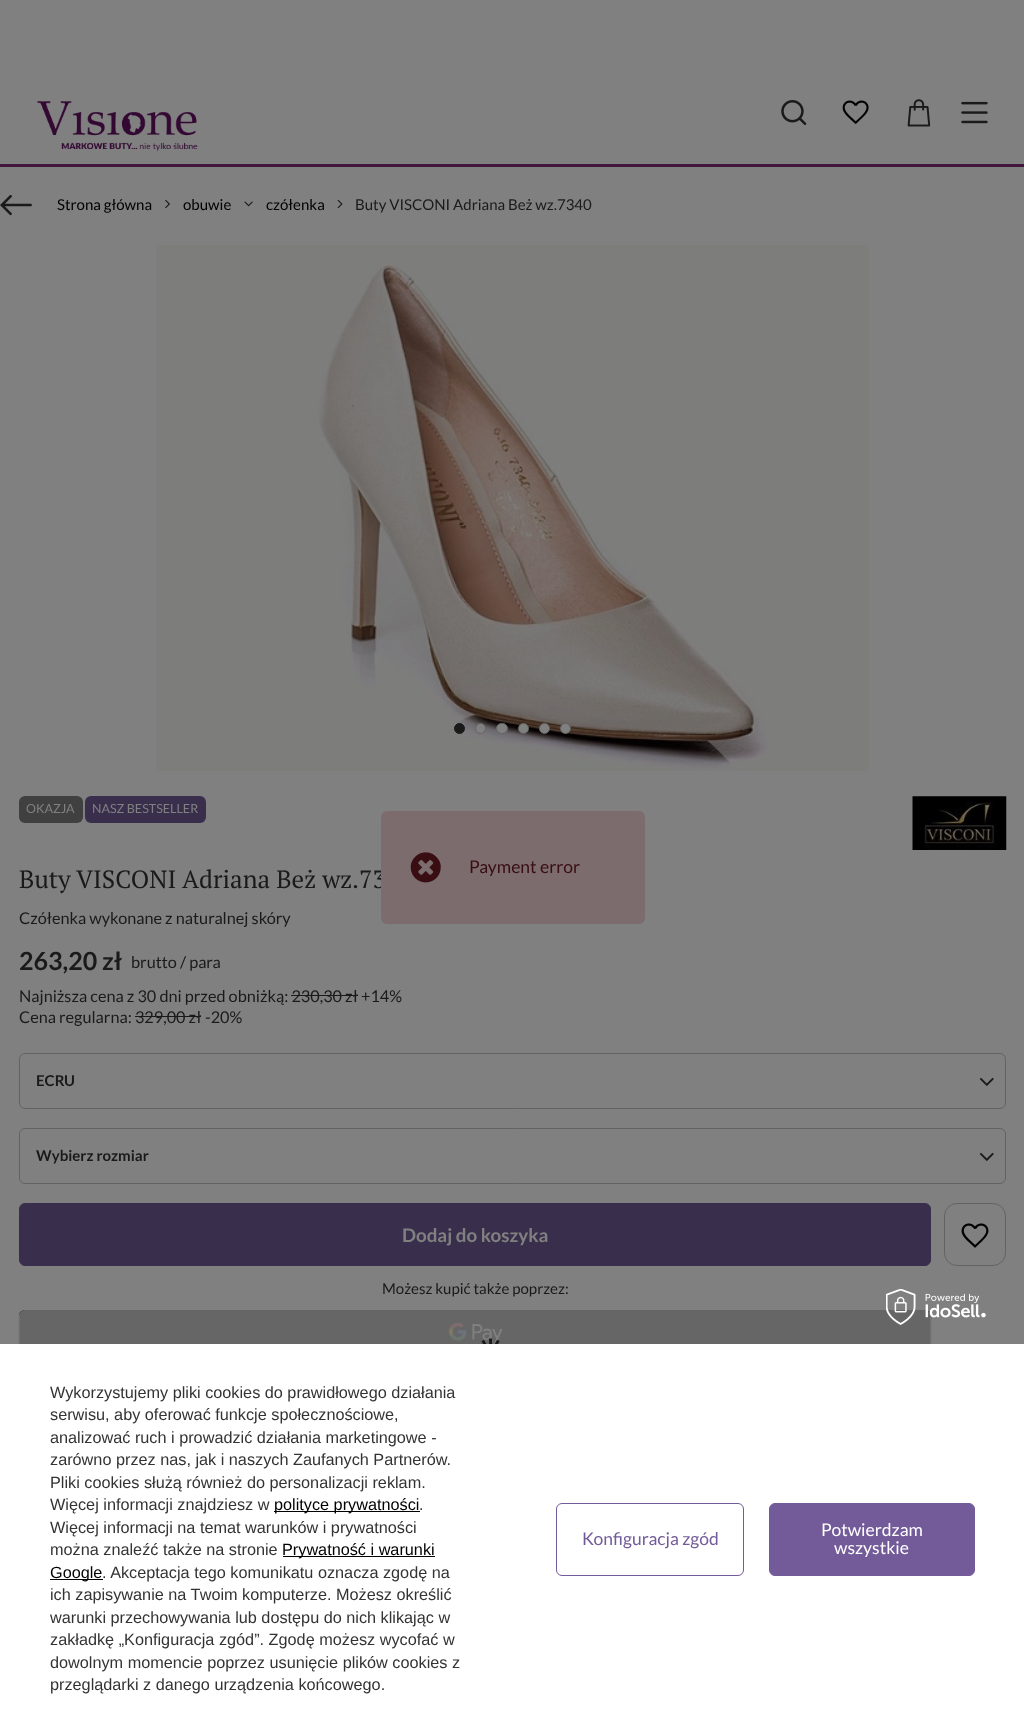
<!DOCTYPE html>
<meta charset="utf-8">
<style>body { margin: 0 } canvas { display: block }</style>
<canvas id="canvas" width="1024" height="1733"></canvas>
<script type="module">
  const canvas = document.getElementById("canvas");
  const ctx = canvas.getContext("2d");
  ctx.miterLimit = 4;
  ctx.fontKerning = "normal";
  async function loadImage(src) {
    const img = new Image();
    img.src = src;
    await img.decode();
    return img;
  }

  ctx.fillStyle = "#808080";
  ctx.fillRect(0, 0, 1024, 1733);
  ctx.drawImage(await loadImage("img1.png"), 37, 101, 161, 50);
  ctx.drawImage(await loadImage("img2.png"), 781, 100, 26, 25);
  ctx.drawImage(await loadImage("img3.png"), 842, 100, 27, 24);
  ctx.drawImage(await loadImage("img4.png"), 907, 99, 24, 28);
  ctx.drawImage(await loadImage("img5.png"), 961, 101, 27, 23);
  ctx.fillStyle = "#41183c";
  ctx.fillRect(0, 164, 1024, 3);
  ctx.drawImage(await loadImage("img6.png"), 0, 195, 32, 21);
  ctx.font = "15px Lato";
  ctx.fillStyle = "#000000";
  ctx.fillText("Strona główna", 57, 210);
  ctx.drawImage(await loadImage("img7.png"), 165, 199, 5, 10);
  ctx.fillText("obuwie", 183, 210);
  ctx.drawImage(await loadImage("img8.png"), 244, 201, 9, 6);
  ctx.fillText("czółenka", 266, 210);
  ctx.drawImage(await loadImage("img9.png"), 337, 199, 6, 10);
  ctx.fillStyle = "#1a1a1a";
  ctx.fillText("Buty VISCONI Adriana Beż wz.7340", 355, 210);
  ctx.drawImage(await loadImage("img10.png"), 156, 245, 713, 526);
  ctx.beginPath();
  ctx.arc(459.5, 728.5, 5, 0, Math.PI * 2);
  ctx.fill();
  ctx.strokeStyle = "#1a1a1a";
  ctx.stroke();
  ctx.fillStyle = "#808080";
  ctx.beginPath();
  ctx.arc(480.5, 728.5, 5, 0, Math.PI * 2);
  ctx.fill();
  ctx.strokeStyle = "#626464";
  ctx.stroke();
  ctx.beginPath();
  ctx.roundRect(496.5, 723.5, 11, 10, 5);
  ctx.fill();
  ctx.stroke();
  ctx.beginPath();
  ctx.arc(523.5, 728.5, 5, 0, Math.PI * 2);
  ctx.fill();
  ctx.stroke();
  ctx.beginPath();
  ctx.arc(544.5, 728.5, 5, 0, Math.PI * 2);
  ctx.fill();
  ctx.stroke();
  ctx.beginPath();
  ctx.arc(565.5, 728.5, 5, 0, Math.PI * 2);
  ctx.fill();
  ctx.stroke();
  ctx.fillStyle = "#404040";
  ctx.beginPath();
  ctx.roundRect(19, 796, 64, 27, 6);
  ctx.fill();
  ctx.font = "12.5px Lato";
  ctx.fillStyle = "#808080";
  ctx.fillText("OKAZJA", 26, 813);
  ctx.fillStyle = "#3a2e4d";
  ctx.beginPath();
  ctx.roundRect(85, 796, 121, 27, 6);
  ctx.fill();
  ctx.fillStyle = "#808080";
  ctx.fillText("NASZ BESTSELLER", 92, 813);
  ctx.drawImage(await loadImage("img11.png"), 912, 796, 95, 54);
  ctx.font = "25px PT Serif";
  ctx.fillStyle = "#1a1a1a";
  ctx.fillText("Buty VISCONI Adriana Beż wz.73", 19, 888);
  ctx.font = "16.25px Lato";
  ctx.fillText("Czółenka wykonane z naturalnej skóry", 19, 924);
  ctx.font = "bold 25px Lato";
  ctx.fillText("263,20 zł", 19, 970);
  ctx.font = "16.25px Lato";
  ctx.fillText("brutto / para", 131, 968);
  ctx.fillText("Najniższa cena z 30 dni przed obniżką: 230,30 zł", 19, 1002);
  ctx.fillText("+14%", 361, 1002);
  ctx.fillRect(291, 995, 67, 1);
  ctx.fillText("Cena regularna: 329,00 zł", 19, 1023);
  ctx.fillText("-20%", 205, 1023);
  ctx.fillRect(135, 1016, 66, 1);
  ctx.beginPath();
  ctx.roundRect(19.5, 1053.5, 986, 55, 5.5);
  ctx.stroke();
  ctx.font = "bold 15px Lato";
  ctx.fillText("ECRU", 36, 1086);
  ctx.drawImage(await loadImage("img12.png"), 979, 1077, 15, 9);
  ctx.beginPath();
  ctx.roundRect(19.5, 1128.5, 986, 55, 5.5);
  ctx.stroke();
  ctx.fillText("Wybierz rozmiar", 36, 1161);
  ctx.drawImage(await loadImage("img12.png"), 979, 1152, 15, 9);
  ctx.fillStyle = "#3a2e4d";
  ctx.beginPath();
  ctx.roundRect(19.5, 1203.5, 911, 62, 5.5);
  ctx.fill();
  ctx.strokeStyle = "#3a2e4d";
  ctx.stroke();
  ctx.font = "bold 18.75px Lato";
  ctx.fillStyle = "#808080";
  ctx.fillText("Dodaj do koszyka", 402, 1242);
  ctx.beginPath();
  ctx.roundRect(944.5, 1203.5, 61, 62, 12.5);
  ctx.strokeStyle = "#626464";
  ctx.stroke();
  ctx.drawImage(await loadImage("img13.png"), 961, 1223, 28, 25);
  ctx.font = "15px Lato";
  ctx.fillStyle = "#1a1a1a";
  ctx.fillText("Możesz kupić także poprzez:", 382, 1294);
  ctx.drawImage(await loadImage("img14.png"), 18, 1310, 914, 34);
  ctx.fillStyle = "rgba(128, 128, 128, 0.8)";
  ctx.beginPath();
  ctx.roundRect(19, 1310, 912, 50, 6);
  ctx.fill();
  ctx.drawImage(await loadImage("img15.png"), 481, 1338, 19, 6);
  ctx.fillStyle = "#7c6c6d";
  ctx.beginPath();
  ctx.roundRect(381, 811, 264, 113, 6);
  ctx.fill();
  ctx.drawImage(await loadImage("img16.png"), 410, 852, 31, 31);
  ctx.font = "17.5px Lato";
  ctx.fillStyle = "#390e12";
  ctx.fillText("Payment error", 469, 873);
  ctx.fillStyle = "#ffffff";
  ctx.fillRect(0, 1344, 1024, 389);
  ctx.drawImage(await loadImage("img17.png"), 886, 1289, 100, 36);
  ctx.font = "16.25px Liberation Sans";
  ctx.fillStyle = "#333333";
  ctx.fillText("Wykorzystujemy pliki cookies do prawidłowego działania", 50, 1398);
  ctx.fillText("serwisu, aby oferować funkcje społecznościowe,", 50, 1420);
  ctx.fillText("analizować ruch i prowadzić działania marketingowe -", 50, 1443);
  ctx.fillText("zarówno przez nas, jak i naszych Zaufanych Partnerów.", 50, 1465);
  ctx.fillText("Pliki cookies służą również do personalizacji reklam.", 50, 1488);
  ctx.fillText("Więcej informacji znajdziesz w", 50, 1510);
  ctx.fillStyle = "#000000";
  ctx.fillRect(274, 1511, 146, 1);
  ctx.fillText("polityce prywatności", 274, 1510);
  ctx.fillStyle = "#333333";
  ctx.fillText(".", 419, 1510);
  ctx.fillText("Więcej informacji na temat warunków i prywatności", 50, 1533);
  ctx.fillText("można znaleźć także na stronie", 50, 1555);
  ctx.fillStyle = "#000000";
  ctx.fillRect(283, 1556, 152, 1);
  ctx.fillText("Prywatność i warunki", 282, 1555);
  ctx.fillRect(50, 1579, 53, 1);
  ctx.fillText("Google", 50, 1578);
  ctx.fillStyle = "#333333";
  ctx.fillText(". Akceptacja tego komunikatu oznacza zgodę na", 102, 1578);
  ctx.fillText("ich zapisywanie na Twoim komputerze. Możesz określić", 50, 1600);
  ctx.fillText("warunki przechowywania lub dostępu do nich klikając w", 50, 1623);
  ctx.fillText("zakładkę „Konfiguracja zgód”. Zgodę możesz wycofać w", 50, 1645);
  ctx.fillText("dowolnym momencie poprzez usunięcie plików cookies z", 50, 1668);
  ctx.fillText("przeglądarki z danego urządzenia końcowego.", 50, 1690);
  ctx.beginPath();
  ctx.roundRect(556.5, 1503.5, 187, 72, 5.5);
  ctx.strokeStyle = "#735b99";
  ctx.stroke();
  ctx.font = "17.5px Lato";
  ctx.fillStyle = "#735b99";
  ctx.fillText("Konfiguracja zgód", 582, 1545);
  ctx.beginPath();
  ctx.roundRect(769.5, 1503.5, 205, 72, 5.5);
  ctx.fill();
  ctx.stroke();
  ctx.fillStyle = "#ffffff";
  ctx.fillText("Potwierdzam", 821, 1536);
  ctx.fillText("wszystkie", 834, 1554);
</script>
